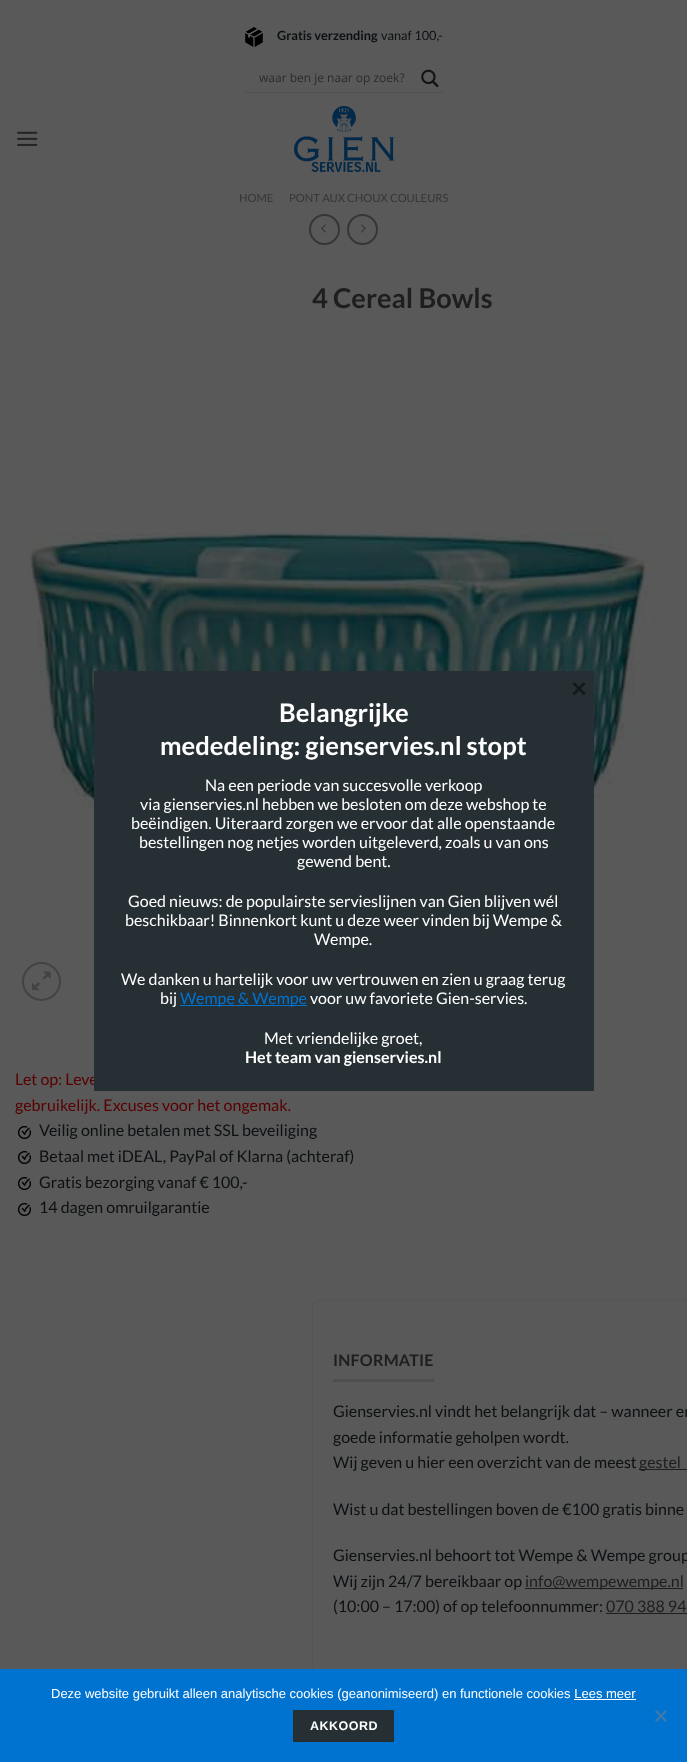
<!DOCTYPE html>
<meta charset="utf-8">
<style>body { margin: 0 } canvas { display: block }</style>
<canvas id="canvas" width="687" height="1762"></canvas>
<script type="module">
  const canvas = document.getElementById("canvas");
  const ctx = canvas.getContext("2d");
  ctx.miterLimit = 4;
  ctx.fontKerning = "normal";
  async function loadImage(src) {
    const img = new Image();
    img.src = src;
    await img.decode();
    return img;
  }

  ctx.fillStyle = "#595959";
  ctx.fillRect(0, 0, 687, 1762);
  ctx.drawImage(await loadImage("img1.png"), 245, 27, 18, 20);
  ctx.font = "bold 12.75px Lato";
  ctx.fillStyle = "#0d1012";
  ctx.fillText("Gratis verzending", 277, 40);
  ctx.font = "12.75px Lato";
  ctx.fillText("vanaf 100,-", 381, 40);
  ctx.fillStyle = "#505050";
  ctx.fillRect(244, 92, 200, 1);
  ctx.font = "12px Open Sans";
  ctx.fillStyle = "#2c2c2c";
  ctx.fillText("waar ben je naar op zoek?", 259, 82);
  ctx.drawImage(await loadImage("img2.png"), 421, 69, 18, 19);
  ctx.drawImage(await loadImage("img3.png"), 17, 131, 21, 15);
  ctx.drawImage(await loadImage("img4.png"), 294, 106, 100, 66);
  ctx.font = "11.25px Lato";
  ctx.fillStyle = "#363636";
  ctx.fillText("HOME", 239, 202);
  ctx.fillText("PONT AUX CHOUX COULEURS", 289, 202);
  ctx.beginPath();
  ctx.arc(324.5, 229.5, 14.5, 0, Math.PI * 2);
  ctx.strokeStyle = "#363636";
  ctx.lineWidth = 2;
  ctx.stroke();
  ctx.drawImage(await loadImage("img5.png"), 321, 224, 5, 9);
  ctx.beginPath();
  ctx.arc(362.5, 229.5, 14.5, 0, Math.PI * 2);
  ctx.stroke();
  ctx.drawImage(await loadImage("img6.png"), 361, 224, 5, 9);
  ctx.font = "bold 27.25px Lato";
  ctx.fillStyle = "#1e1e1e";
  ctx.fillText("4 Cereal Bowls", 312, 308);
  ctx.drawImage(await loadImage("img7.png"), 26, 531, 632, 346);
  ctx.beginPath();
  ctx.arc(41.5, 981.5, 18.5, 0, Math.PI * 2);
  ctx.strokeStyle = "#434343";
  ctx.stroke();
  ctx.drawImage(await loadImage("img8.png"), 32, 971, 19, 20);
  ctx.font = "16px Lato";
  ctx.fillStyle = "#590000";
  ctx.fillText("Let op: Leve", 15, 1085);
  ctx.fillText("gebruikelijk. Excuses voor het ongemak.", 15, 1111);
  ctx.drawImage(await loadImage("img9.png"), 18, 1126, 13, 13);
  ctx.fillStyle = "#0d1012";
  ctx.fillText("Veilig online betalen met SSL beveiliging", 39, 1136);
  ctx.drawImage(await loadImage("img9.png"), 18, 1151, 13, 13);
  ctx.fillText("Betaal met iDEAL, PayPal of Klarna (achteraf)", 39, 1162);
  ctx.drawImage(await loadImage("img9.png"), 18, 1177, 13, 13);
  ctx.fillText("Gratis bezorging vanaf € 100,-", 39, 1188);
  ctx.drawImage(await loadImage("img9.png"), 18, 1203, 13, 13);
  ctx.fillText("14 dagen omruilgarantie", 39, 1213);
  ctx.beginPath();
  ctx.roundRect(312.5, 1300.5, 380, 380, 4.5);
  ctx.strokeStyle = "#555555";
  ctx.lineWidth = 1;
  ctx.stroke();
  ctx.fillStyle = "#4e4e4e";
  ctx.fillRect(333, 1379, 101, 3);
  ctx.letterSpacing = "0.25px";
  ctx.font = "bold 16px Lato";
  ctx.fillStyle = "#1e1e1e";
  ctx.fillText("INFORMATIE", 333, 1366);
  ctx.letterSpacing = "0px";
  ctx.font = "16px Lato";
  ctx.fillStyle = "#0d1012";
  ctx.fillText("Gienservies.nl vindt het belangrijk dat – wanneer er", 333, 1417);
  ctx.fillText("goede informatie geholpen wordt.", 333, 1443);
  ctx.fillText("Wij geven u hier een overzicht van de meest", 333, 1468);
  ctx.fillStyle = "#1e1e1e";
  ctx.fillRect(639, 1469, 48, 1);
  ctx.fillText("gestel", 639, 1468);
  ctx.fillStyle = "#0d1012";
  ctx.fillText("Wist u dat bestellingen boven de €100 gratis binne", 333, 1515);
  ctx.fillText("Gienservies.nl behoort tot Wempe & Wempe group", 333, 1561);
  ctx.fillText("Wij zijn 24/7 bereikbaar op", 333, 1587);
  ctx.fillStyle = "#1e1e1e";
  ctx.fillRect(525, 1588, 158, 1);
  ctx.fillText("info@wempewempe.nl", 525, 1587);
  ctx.fillStyle = "#0d1012";
  ctx.fillText("(10:00 – 17:00) of op telefoonnummer:", 333, 1612);
  ctx.fillStyle = "#1e1e1e";
  ctx.fillText("070 388 94", 606, 1612);
  ctx.fillRect(606, 1613, 81, 1);
  ctx.fillStyle = "#262f33";
  ctx.fillRect(94, 671, 500, 420);
  ctx.font = "bold 28px Lato";
  ctx.fillStyle = "#13181a";
  ctx.fillText("×", 571, 698);
  ctx.font = "bold 25.6px Lato";
  ctx.fillStyle = "#ffffff";
  ctx.fillText("Belangrijke", 279, 722);
  ctx.fillText("mededeling: gienservies.nl stopt", 160, 755);
  ctx.font = "16px Lato";
  ctx.fillText("Na een periode van succesvolle verkoop", 205, 791);
  ctx.fillText("via gienservies.nl hebben we besloten om deze webshop te", 140, 810);
  ctx.fillText("beëindigen. Uiteraard zorgen we ervoor dat alle openstaande", 131, 829);
  ctx.fillText("bestellingen nog netjes worden uitgeleverd, zoals u van ons", 139, 848);
  ctx.fillText("gewend bent.", 297, 867);
  ctx.fillText("Goed nieuws: de populairste servieslijnen van Gien blijven wél", 128, 907);
  ctx.fillText("beschikbaar! Binnenkort kunt u deze weer vinden bij Wempe &", 125, 926);
  ctx.fillText("Wempe.", 314, 945);
  ctx.fillText("We danken u hartelijk voor uw vertrouwen en zien u graag terug", 121, 985);
  ctx.fillText("bij", 160, 1004);
  ctx.fillStyle = "#0073d1";
  ctx.fillRect(180, 1005, 127, 1);
  ctx.fillText("Wempe & Wempe", 180, 1004);
  ctx.fillStyle = "#ffffff";
  ctx.fillText("voor uw favoriete Gien-servies.", 310, 1004);
  ctx.fillText("Met vriendelijke groet,", 264, 1044);
  ctx.font = "bold 16px Lato";
  ctx.fillText("Het team van gienservies.nl", 245, 1063);
  ctx.fillStyle = "#0073d1";
  ctx.fillRect(0, 1669, 687, 93);
  ctx.font = "13px Liberation Sans";
  ctx.fillStyle = "#ffffff";
  ctx.fillText("Deze website gebruikt alleen analytische cookies (geanonimiseerd) en functionele cookies Lees meer", 51, 1698);
  ctx.fillRect(574, 1699, 62, 1);
  ctx.fillStyle = "#407aa9";
  ctx.beginPath();
  ctx.moveTo(665.5, 1710);
  ctx.lineTo(667, 1711.5);
  ctx.lineTo(656.5, 1722);
  ctx.lineTo(655, 1720.5);
  ctx.closePath();
  ctx.fill();
  ctx.beginPath();
  ctx.moveTo(655, 1711.5);
  ctx.lineTo(656.5, 1710);
  ctx.lineTo(667, 1720.5);
  ctx.lineTo(665.5, 1722);
  ctx.closePath();
  ctx.fill();
  ctx.fillStyle = "#262f33";
  ctx.beginPath();
  ctx.rect(293.5, 1710.5, 100, 31);
  ctx.fill();
  ctx.strokeStyle = "#242d30";
  ctx.stroke();
  ctx.letterSpacing = "0.5px";
  ctx.font = "bold 12.5px Liberation Sans";
  ctx.fillStyle = "#ffffff";
  ctx.fillText("AKKOORD", 310, 1730);
</script>
